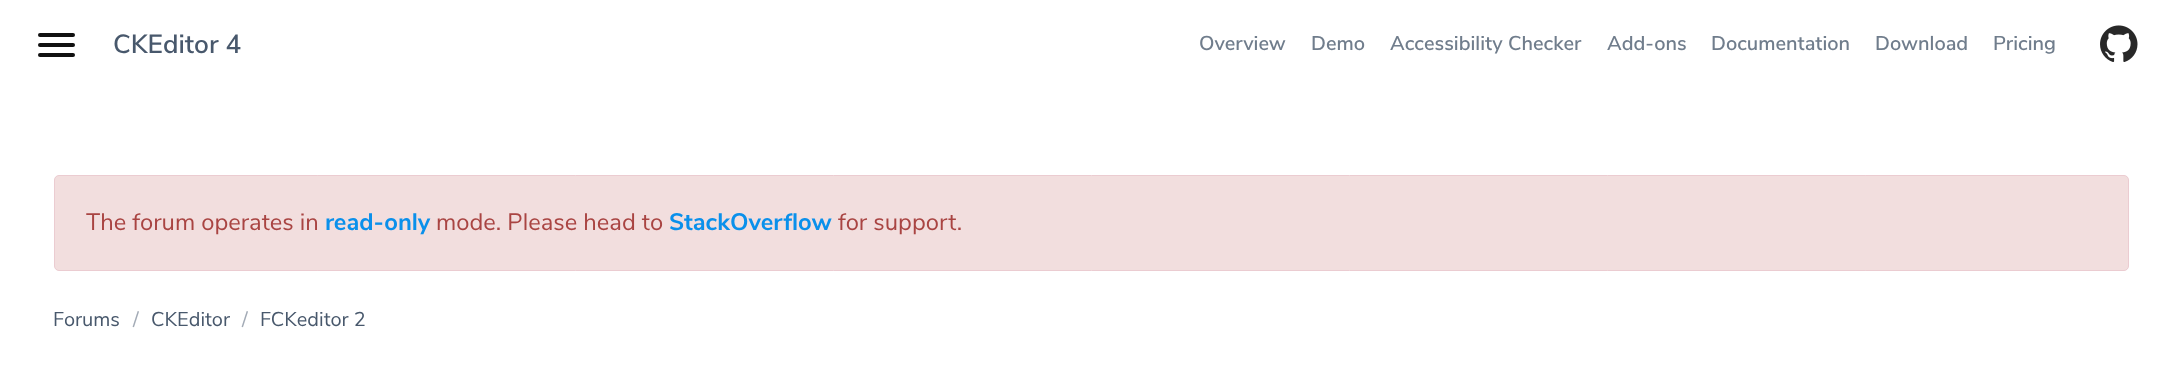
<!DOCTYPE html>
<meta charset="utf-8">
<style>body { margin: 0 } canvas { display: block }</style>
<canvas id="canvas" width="2181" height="381"></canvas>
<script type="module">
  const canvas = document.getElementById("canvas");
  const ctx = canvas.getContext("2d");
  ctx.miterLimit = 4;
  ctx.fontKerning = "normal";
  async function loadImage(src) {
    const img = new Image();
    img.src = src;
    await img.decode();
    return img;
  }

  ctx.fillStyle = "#ffffff";
  ctx.fillRect(0, 0, 2181, 381);
  ctx.fillStyle = "#111111";
  ctx.beginPath();
  ctx.roundRect(38, 33, 37, 4, 2);
  ctx.fill();
  ctx.beginPath();
  ctx.roundRect(38, 43, 37, 4, 2);
  ctx.fill();
  ctx.beginPath();
  ctx.roundRect(38, 53, 37, 4, 2);
  ctx.fill();
  ctx.font = "600 26.25px Nunito Sans";
  ctx.fillStyle = "#48586c";
  ctx.fillText("CKEditor 4", 113, 53);
  ctx.font = "600 20px Nunito Sans";
  ctx.fillStyle = "#707d8c";
  ctx.fillText("Overview", 1199, 50);
  ctx.fillText("Demo", 1311, 50);
  ctx.fillText("Accessibility Checker", 1390, 50);
  ctx.fillText("Add-ons", 1607, 50);
  ctx.fillText("Documentation", 1711, 50);
  ctx.fillText("Download", 1875, 50);
  ctx.fillText("Pricing", 1993, 50);
  ctx.drawImage(await loadImage("img1.png"), 2100, 25, 38, 37);
  ctx.fillStyle = "#f2dede";
  ctx.beginPath();
  ctx.roundRect(54.5, 175.5, 2074, 95, 4.5);
  ctx.fill();
  ctx.strokeStyle = "#ebccd1";
  ctx.stroke();
  ctx.font = "23.75px Nunito Sans";
  ctx.fillStyle = "#a94442";
  ctx.fillText("The forum operates in", 86, 230);
  ctx.font = "bold 23.75px Nunito Sans";
  ctx.fillStyle = "#0a90eb";
  ctx.fillText("read-only", 325, 230);
  ctx.font = "23.75px Nunito Sans";
  ctx.fillStyle = "#a94442";
  ctx.fillText("mode. Please head to", 436, 230);
  ctx.font = "bold 23.75px Nunito Sans";
  ctx.fillStyle = "#0a90eb";
  ctx.fillText("StackOverflow", 669, 230);
  ctx.font = "23.75px Nunito Sans";
  ctx.fillStyle = "#a94442";
  ctx.fillText("for support.", 838, 230);
  ctx.font = "20px Nunito Sans";
  ctx.fillStyle = "#48586c";
  ctx.fillText("Forums", 53, 326);
  ctx.fillStyle = "#a3abb6";
  ctx.fillText("/", 133, 326);
  ctx.fillStyle = "#48586c";
  ctx.fillText("CKEditor", 151, 326);
  ctx.fillStyle = "#a3abb6";
  ctx.fillText("/", 242, 326);
  ctx.fillStyle = "#48586c";
  ctx.fillText("FCKeditor 2", 260, 326);
</script>
